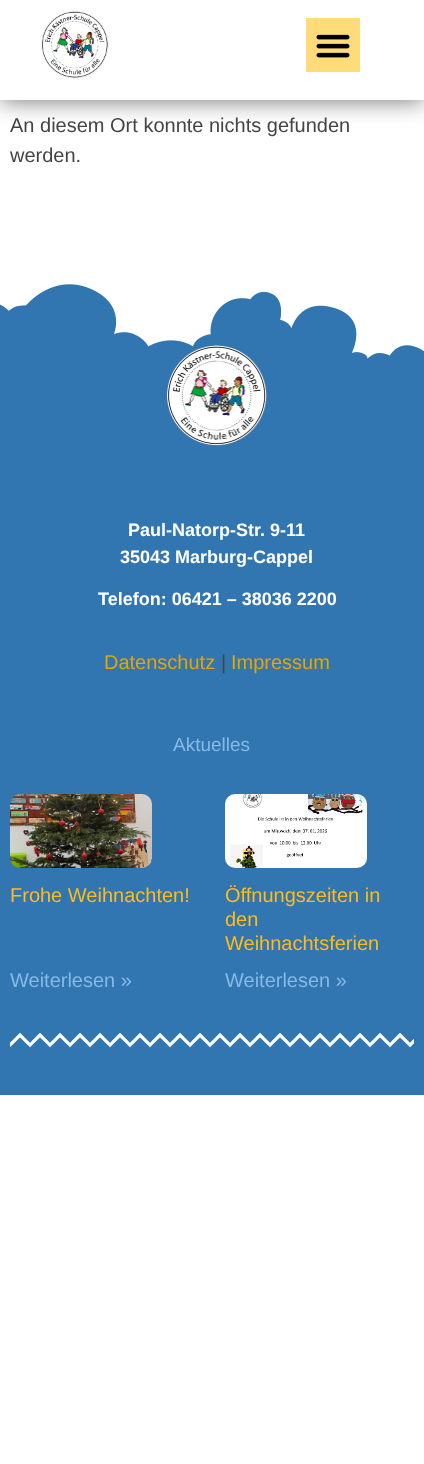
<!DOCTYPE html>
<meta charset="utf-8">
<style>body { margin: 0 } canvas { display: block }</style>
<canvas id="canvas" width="424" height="1464"></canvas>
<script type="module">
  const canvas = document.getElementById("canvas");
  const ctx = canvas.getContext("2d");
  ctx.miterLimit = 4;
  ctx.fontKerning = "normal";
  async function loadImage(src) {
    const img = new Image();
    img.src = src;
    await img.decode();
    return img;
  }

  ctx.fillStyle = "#ffffff";
  ctx.fillRect(0, 0, 424, 1464);
  ctx.fillStyle = "rgba(17, 17, 17, 0.62)";
  ctx.filter = "blur(12px)";
  ctx.beginPath();
  ctx.rect(0, 0, 424, 100);
  ctx.fill();
  ctx.filter = "none";
  ctx.fillStyle = "#ffffff";
  ctx.fillRect(0, 0, 424, 100);
  ctx.drawImage(await loadImage("img1.png"), 41, 10, 68, 69);
  ctx.fillStyle = "#ffdb7a";
  ctx.fillRect(306, 18, 54, 54);
  ctx.drawImage(await loadImage("img2.png"), 316, 34, 34, 24);
  ctx.font = "20px Liberation Sans";
  ctx.fillStyle = "#444444";
  ctx.fillText("An diesem Ort konnte nichts gefunden", 10, 132);
  ctx.fillText("werden.", 10, 162);
  ctx.fillStyle = "#3276b1";
  ctx.fillRect(0, 284, 424, 811);
  ctx.drawImage(await loadImage("img3.png"), 0, 284, 424, 75);
  ctx.drawImage(await loadImage("img4.png"), 167, 345, 100, 101);
  ctx.font = "bold 18px Liberation Sans";
  ctx.fillStyle = "#ffffff";
  ctx.fillText("Paul-Natorp-Str. 9-11", 128, 536);
  ctx.fillText("35043 Marburg-Cappel", 120, 563);
  ctx.fillText("Telefon: 06421 – 38036 2200", 98, 605);
  ctx.font = "20px Liberation Sans";
  ctx.fillStyle = "#e3a602";
  ctx.fillText("Datenschutz", 104, 669);
  ctx.fillStyle = "#444444";
  ctx.fillText("|", 221, 669);
  ctx.fillStyle = "#e3a602";
  ctx.fillText("Impressum", 231, 669);
  ctx.font = "19px Liberation Sans";
  ctx.fillStyle = "#85b9e6";
  ctx.fillText("Aktuelles", 173, 751);
  ctx.drawImage(await loadImage("img5.png"), 10, 794, 142, 74);
  ctx.font = "20px Liberation Sans";
  ctx.fillStyle = "#ffbb18";
  ctx.fillText("Frohe Weihnachten!", 10, 902);
  ctx.fillStyle = "#85b9e6";
  ctx.fillText("Weiterlesen »", 10, 987);
  ctx.drawImage(await loadImage("img6.png"), 225, 794, 142, 74);
  ctx.fillStyle = "#ffbb18";
  ctx.fillText("Öffnungszeiten in", 225, 902);
  ctx.fillText("den", 225, 926);
  ctx.fillText("Weihnachtsferien", 225, 950);
  ctx.fillStyle = "#85b9e6";
  ctx.fillText("Weiterlesen »", 225, 987);
  ctx.drawImage(await loadImage("img7.png"), 10, 1032, 404, 16);
</script>
